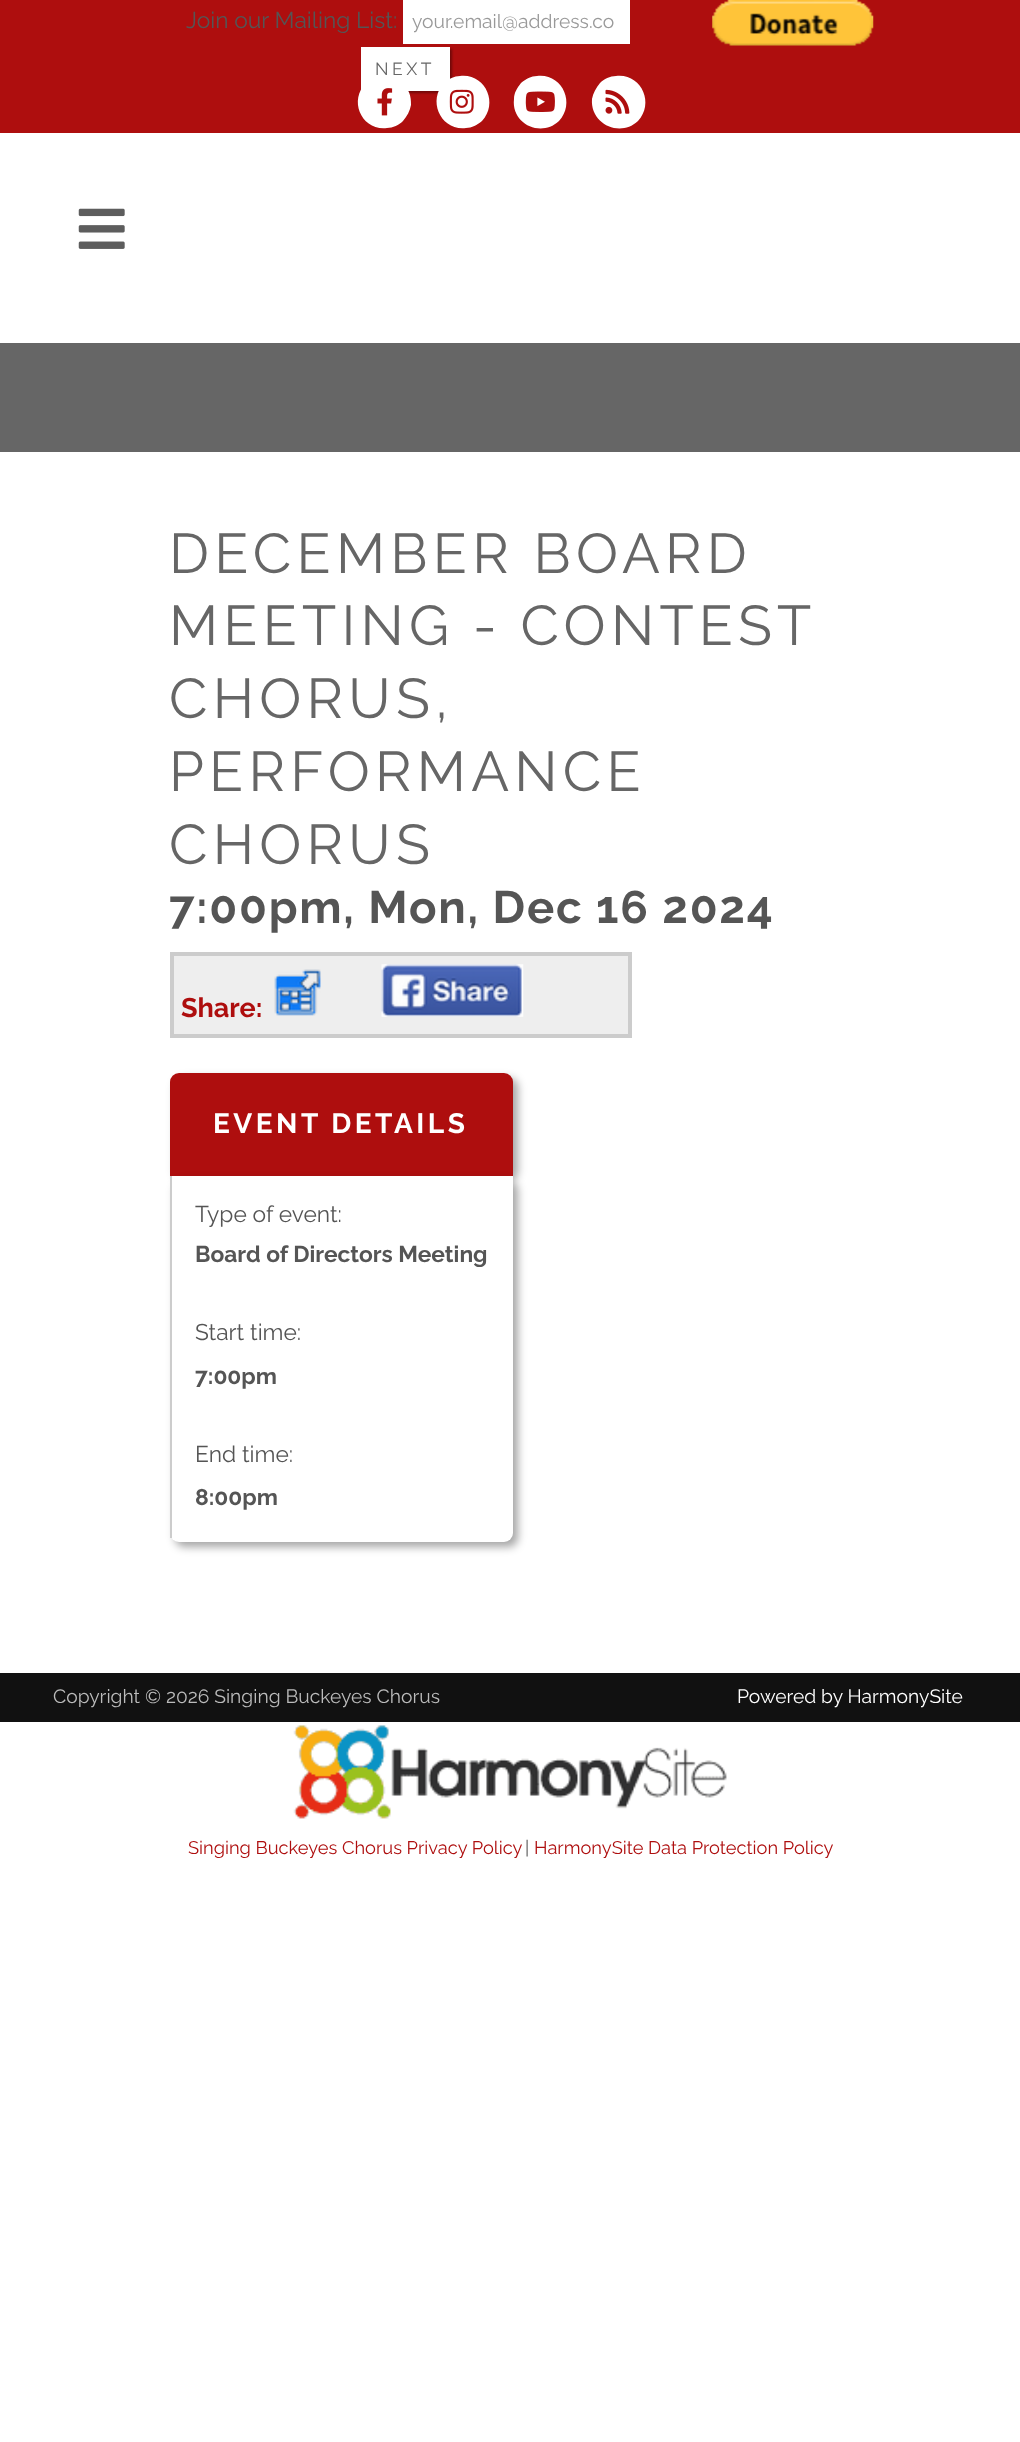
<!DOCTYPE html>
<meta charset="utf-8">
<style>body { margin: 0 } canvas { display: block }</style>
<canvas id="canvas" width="1020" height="2442"></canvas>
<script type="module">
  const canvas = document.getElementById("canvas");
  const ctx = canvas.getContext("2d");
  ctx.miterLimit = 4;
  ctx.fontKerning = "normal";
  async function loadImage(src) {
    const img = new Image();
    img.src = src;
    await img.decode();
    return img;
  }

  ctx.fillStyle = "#ffffff";
  ctx.fillRect(0, 0, 1020, 2442);
  ctx.fillStyle = "#ae0e0e";
  ctx.fillRect(0, 0, 1020, 133);
  ctx.font = "22.75px Raleway";
  ctx.fillStyle = "#555555";
  ctx.fillText("Join our Mailing List:", 186, 28);
  ctx.fillStyle = "#ffffff";
  ctx.fillRect(403, 0, 227, 44);
  ctx.font = "19.25px Raleway";
  ctx.fillStyle = "#999999";
  ctx.fillText("your.email@address.co", 412, 28);
  ctx.fillStyle = "rgba(0, 0, 0, 0.35)";
  ctx.filter = "blur(1px)";
  ctx.beginPath();
  ctx.rect(362, 49, 90, 44);
  ctx.fill();
  ctx.filter = "none";
  ctx.fillStyle = "#ffffff";
  ctx.fillRect(361, 47, 89, 44);
  ctx.letterSpacing = "3.5px";
  ctx.font = "17.5px Raleway";
  ctx.fillStyle = "#666666";
  ctx.fillText("NEXT", 375, 75);
  ctx.drawImage(await loadImage("img1.png"), 712, 0, 162, 46);
  ctx.fillStyle = "#ffffff";
  ctx.beginPath();
  ctx.moveTo(366, 83);
  ctx.bezierCurveTo(383, 66, 413, 80, 411, 105);
  ctx.bezierCurveTo(410, 111, 407, 116, 403, 121);
  ctx.bezierCurveTo(399, 125, 393, 128, 387, 128);
  ctx.bezierCurveTo(362, 131, 348, 101, 366, 83);
  ctx.closePath();
  ctx.fill();
  ctx.drawImage(await loadImage("img2.png"), 377, 88, 16, 28);
  ctx.beginPath();
  ctx.moveTo(444, 83);
  ctx.bezierCurveTo(449, 79, 454, 76, 460, 76);
  ctx.bezierCurveTo(485, 73, 499, 103, 482, 121);
  ctx.bezierCurveTo(477, 125, 472, 128, 466, 128);
  ctx.bezierCurveTo(441, 131, 427, 101, 444, 83);
  ctx.closePath();
  ctx.fill();
  ctx.drawImage(await loadImage("img3.png"), 449, 89, 25, 25);
  ctx.beginPath();
  ctx.moveTo(521, 83);
  ctx.bezierCurveTo(526, 79, 531, 76, 537, 76);
  ctx.bezierCurveTo(562, 73, 576, 103, 559, 121);
  ctx.bezierCurveTo(541, 138, 511, 124, 514, 99);
  ctx.bezierCurveTo(514, 93, 517, 88, 521, 83);
  ctx.closePath();
  ctx.fill();
  ctx.drawImage(await loadImage("img4.png"), 525, 91, 30, 21);
  ctx.beginPath();
  ctx.moveTo(600, 83);
  ctx.bezierCurveTo(604, 79, 610, 76, 616, 76);
  ctx.bezierCurveTo(641, 73, 655, 103, 638, 121);
  ctx.bezierCurveTo(620, 138, 590, 124, 592, 99);
  ctx.bezierCurveTo(593, 93, 596, 88, 600, 83);
  ctx.closePath();
  ctx.fill();
  ctx.drawImage(await loadImage("img5.png"), 605, 89, 25, 25);
  ctx.drawImage(await loadImage("img6.png"), 78, 208, 47, 41);
  ctx.fillStyle = "#666666";
  ctx.fillRect(0, 343, 1020, 109);
  ctx.letterSpacing = "5.25px";
  ctx.font = "56px Raleway";
  ctx.fillText("DECEMBER BOARD", 169, 573);
  ctx.wordSpacing = "-1px";
  ctx.fillText("MEETING - CONTEST", 169, 645);
  ctx.wordSpacing = "0px";
  ctx.fillText("CHORUS,", 169, 718);
  ctx.fillText("PERFORMANCE", 169, 791);
  ctx.fillText("CHORUS", 169, 864);
  ctx.letterSpacing = "1.75px";
  ctx.font = "bold 45.5px Raleway";
  ctx.fillStyle = "#555555";
  ctx.fillText("7:00pm, Mon, Dec 16 2024", 169, 923);
  ctx.fillStyle = "#eeeeee";
  ctx.beginPath();
  ctx.rect(172, 954, 458, 82);
  ctx.fill();
  ctx.strokeStyle = "#cccccc";
  ctx.lineWidth = 4;
  ctx.stroke();
  ctx.letterSpacing = "0px";
  ctx.font = "bold 27px Raleway";
  ctx.fillStyle = "#ae0e0e";
  ctx.fillText("Share:", 181, 1017);
  ctx.drawImage(await loadImage("img7.png"), 274, 969, 47, 47);
  ctx.drawImage(await loadImage("img8.png"), 381, 964, 143, 53);
  ctx.fillStyle = "rgba(0, 0, 0, 0.35)";
  ctx.filter = "blur(4.5px)";
  ctx.beginPath();
  ctx.roundRect(175, 1078, 343, 103, 9);
  ctx.fill();
  ctx.filter = "none";
  ctx.fillStyle = "#ae0e0e";
  ctx.beginPath();
  ctx.roundRect(170, 1073, 343, 103, [9, 9, 0, 0]);
  ctx.fill();
  ctx.letterSpacing = "3.5px";
  ctx.font = "bold 28px Raleway";
  ctx.fillStyle = "#ffffff";
  ctx.fillText("EVENT DETAILS", 213, 1133);
  ctx.fillStyle = "rgba(0, 0, 0, 0.35)";
  ctx.filter = "blur(4.5px)";
  ctx.beginPath();
  ctx.roundRect(175, 1181, 343, 366, 9);
  ctx.fill();
  ctx.filter = "none";
  ctx.fillStyle = "#ffffff";
  ctx.beginPath();
  ctx.roundRect(170, 1176, 343, 366, [0, 0, 9, 9]);
  ctx.fill();
  ctx.fillStyle = "#cccccc";
  ctx.fillRect(170, 1176, 2, 362);
  ctx.letterSpacing = "0px";
  ctx.font = "22.75px Raleway";
  ctx.fillStyle = "#555555";
  ctx.fillText("Type of event:", 195, 1222);
  ctx.font = "bold 22.75px Raleway";
  ctx.fillText("Board of Directors Meeting", 195, 1262);
  ctx.font = "22.75px Raleway";
  ctx.fillText("Start time:", 195, 1340);
  ctx.font = "bold 22.75px Raleway";
  ctx.fillText("7:00pm", 195, 1384);
  ctx.font = "22.75px Raleway";
  ctx.fillText("End time:", 195, 1462);
  ctx.font = "bold 22.75px Raleway";
  ctx.fillText("8:00pm", 195, 1505);
  ctx.fillStyle = "#111111";
  ctx.fillRect(0, 1673, 1020, 49);
  ctx.font = "19.25px Raleway";
  ctx.fillStyle = "#bbbbbb";
  ctx.fillText("Copyright © 2026 Singing Buckeyes Chorus", 53, 1703);
  ctx.fillStyle = "#ffffff";
  ctx.fillText("Powered by HarmonySite", 737, 1703);
  ctx.drawImage(await loadImage("img9.png"), 293, 1725, 434, 94);
  ctx.font = "18.25px Raleway";
  ctx.fillStyle = "#ae0e0e";
  ctx.fillText("Singing Buckeyes Chorus Privacy Policy", 188, 1854);
  ctx.fillStyle = "#555555";
  ctx.fillText("|", 525, 1854);
  ctx.fillStyle = "#ae0e0e";
  ctx.fillText("HarmonySite Data Protection Policy", 534, 1854);
</script>
